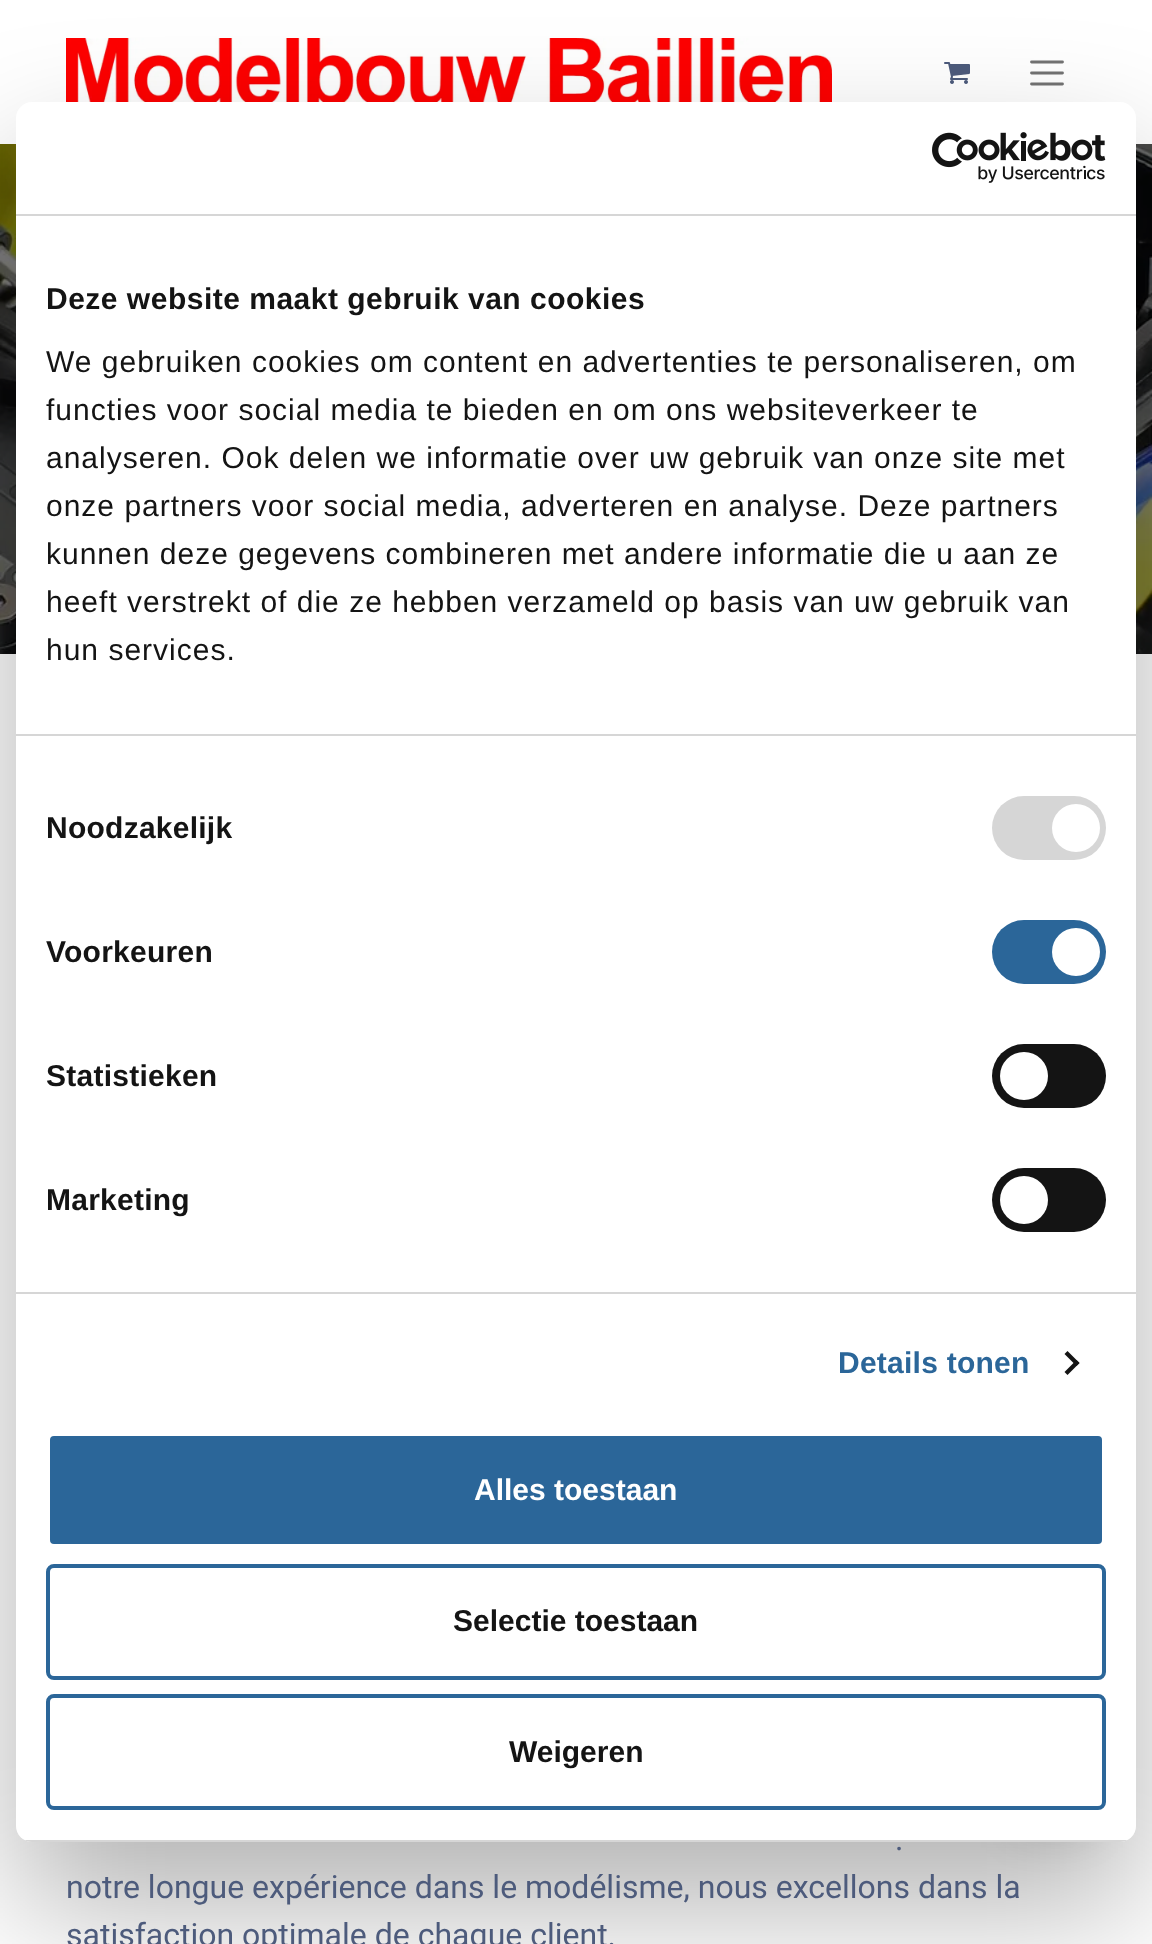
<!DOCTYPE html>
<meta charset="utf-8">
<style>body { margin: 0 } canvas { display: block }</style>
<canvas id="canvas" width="1152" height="1944"></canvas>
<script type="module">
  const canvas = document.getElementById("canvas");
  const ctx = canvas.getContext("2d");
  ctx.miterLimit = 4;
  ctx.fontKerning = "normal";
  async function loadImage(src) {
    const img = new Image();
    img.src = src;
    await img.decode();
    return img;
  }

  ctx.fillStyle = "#ffffff";
  ctx.fillRect(0, 0, 1152, 1944);
  ctx.drawImage(await loadImage("img2.png"), 66, 38, 766, 64);
  ctx.drawImage(await loadImage("img3.png"), 944, 62, 26, 22);
  ctx.beginPath();
  ctx.moveTo(1031.5, 62);
  ctx.lineTo(1062.5, 62);
  ctx.moveTo(1031.5, 73);
  ctx.lineTo(1062.5, 73);
  ctx.moveTo(1031.5, 84);
  ctx.lineTo(1062.5, 84);
  ctx.strokeStyle = "#737373";
  ctx.lineWidth = 2.8;
  ctx.lineCap = "round";
  ctx.stroke();
  ctx.drawImage(await loadImage("img4.png"), 0, 144, 1152, 510);
  ctx.fillStyle = "rgba(0, 0, 0, 0.3)";
  ctx.filter = "blur(68px)";
  ctx.beginPath();
  ctx.roundRect(16, 166, 1120, 1740, 16);
  ctx.fill();
  ctx.filter = "none";
  ctx.fillStyle = "rgba(0, 0, 0, 0.1)";
  ctx.filter = "blur(20px)";
  ctx.beginPath();
  ctx.rect(1012, 1754, 80, 80);
  ctx.fill();
  ctx.filter = "none";
  ctx.fillStyle = "#ffffff";
  ctx.beginPath();
  ctx.roundRect(16, 102, 1120, 1740, 16);
  ctx.fill();
  ctx.fillStyle = "#d6d6d6";
  ctx.fillRect(16, 214, 1120, 2);
  ctx.drawImage(await loadImage("img1.png"), 932, 132, 174, 51);
  ctx.fillRect(16, 734, 1120, 2);
  ctx.letterSpacing = "0.5px";
  ctx.font = "bold 30px Liberation Sans";
  ctx.fillStyle = "#141414";
  ctx.fillText("Deze website maakt gebruik van cookies", 46, 309);
  ctx.letterSpacing = "1px";
  ctx.font = "30px Liberation Sans";
  ctx.fillText("We gebruiken cookies om content en advertenties te personaliseren, om", 46, 372);
  ctx.fillText("functies voor social media te bieden en om ons websiteverkeer te", 46, 420);
  ctx.fillText("analyseren. Ook delen we informatie over uw gebruik van onze site met", 46, 468);
  ctx.fillText("onze partners voor social media, adverteren en analyse. Deze partners", 46, 516);
  ctx.fillText("kunnen deze gegevens combineren met andere informatie die u aan ze", 46, 564);
  ctx.fillText("heeft verstrekt of die ze hebben verzameld op basis van uw gebruik van", 46, 612);
  ctx.fillText("hun services.", 46, 660);
  ctx.fillStyle = "#d6d6d6";
  ctx.fillRect(16, 1292, 1120, 2);
  ctx.letterSpacing = "0.25px";
  ctx.font = "bold 30px Liberation Sans";
  ctx.fillStyle = "#141414";
  ctx.fillText("Noodzakelijk", 46, 838);
  ctx.fillStyle = "#d6d6d6";
  ctx.beginPath();
  ctx.roundRect(992, 796, 114, 64, 32);
  ctx.fill();
  ctx.fillStyle = "#ffffff";
  ctx.beginPath();
  ctx.arc(1076, 828, 24, 0, Math.PI * 2);
  ctx.fill();
  ctx.fillStyle = "#141414";
  ctx.fillText("Voorkeuren", 46, 962);
  ctx.fillStyle = "#2b6699";
  ctx.beginPath();
  ctx.roundRect(992, 920, 114, 64, 32);
  ctx.fill();
  ctx.fillStyle = "#ffffff";
  ctx.beginPath();
  ctx.arc(1076, 952, 24, 0, Math.PI * 2);
  ctx.fill();
  ctx.fillStyle = "#141414";
  ctx.fillText("Statistieken", 46, 1086);
  ctx.beginPath();
  ctx.roundRect(992, 1044, 114, 64, 32);
  ctx.fill();
  ctx.fillStyle = "#ffffff";
  ctx.beginPath();
  ctx.arc(1024, 1076, 24, 0, Math.PI * 2);
  ctx.fill();
  ctx.fillStyle = "#141414";
  ctx.fillText("Marketing", 46, 1210);
  ctx.beginPath();
  ctx.roundRect(992, 1168, 114, 64, 32);
  ctx.fill();
  ctx.fillStyle = "#ffffff";
  ctx.beginPath();
  ctx.arc(1024, 1200, 24, 0, Math.PI * 2);
  ctx.fill();
  ctx.fillStyle = "#2b6699";
  ctx.fillText("Details tonen", 838, 1373);
  ctx.fillStyle = "#141414";
  ctx.beginPath();
  ctx.moveTo(1067.5, 1351);
  ctx.lineTo(1079.5, 1363);
  ctx.lineTo(1076.5, 1366);
  ctx.lineTo(1064.5, 1354);
  ctx.closePath();
  ctx.fill();
  ctx.beginPath();
  ctx.moveTo(1076.5, 1360);
  ctx.lineTo(1079.5, 1363);
  ctx.lineTo(1067.5, 1375);
  ctx.lineTo(1064.5, 1372);
  ctx.closePath();
  ctx.fill();
  ctx.save();
  ctx.beginPath();
  ctx.roundRect(16, 102, 1120, 1740, 16);
  ctx.clip();
  ctx.fillStyle = "#d6d6d6";
  ctx.fillRect(16, 1840, 1120, 2);
  ctx.restore();
  ctx.fillStyle = "#2b6699";
  ctx.beginPath();
  ctx.roundRect(48, 1434, 1056, 112, 6);
  ctx.fill();
  ctx.strokeStyle = "#ffffff";
  ctx.lineWidth = 4;
  ctx.stroke();
  ctx.letterSpacing = "0px";
  ctx.fillStyle = "#ffffff";
  ctx.fillText("Alles toestaan", 474, 1500);
  ctx.beginPath();
  ctx.roundRect(48, 1566, 1056, 112, 6);
  ctx.strokeStyle = "#2b6699";
  ctx.stroke();
  ctx.fillStyle = "#141414";
  ctx.fillText("Selectie toestaan", 453, 1631);
  ctx.beginPath();
  ctx.roundRect(48, 1696, 1056, 112, 6);
  ctx.stroke();
  ctx.fillText("Weigeren", 509, 1762);
  ctx.font = "32px Roboto";
  ctx.fillStyle = "#4d5b7c";
  ctx.fillText(".", 895, 1850);
  ctx.fillText("notre longue expérience dans le modélisme, nous excellons dans la", 66, 1898);
  ctx.fillText("satisfaction optimale de chaque client.", 66, 1946);
</script>
